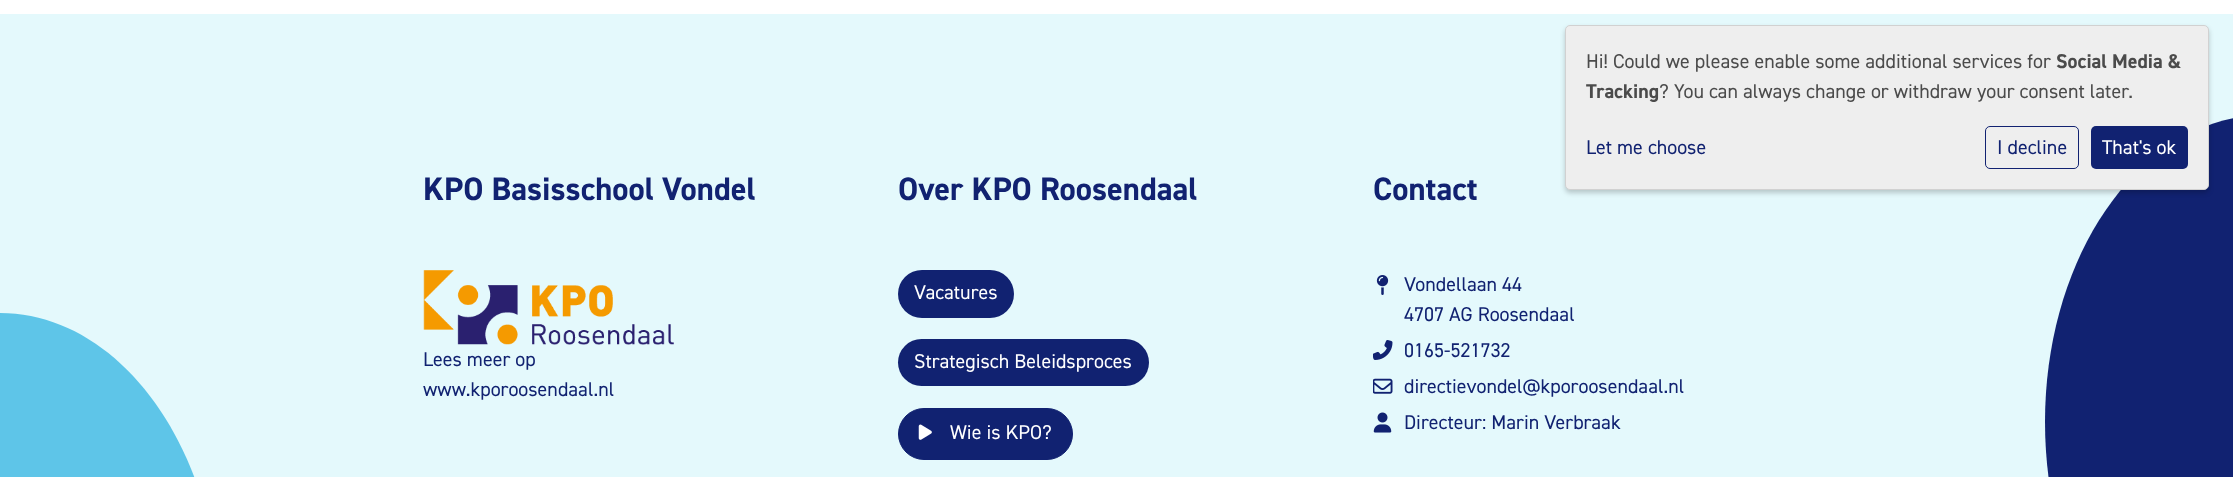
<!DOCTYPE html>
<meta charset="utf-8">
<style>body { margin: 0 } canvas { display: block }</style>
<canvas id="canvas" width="2233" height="477"></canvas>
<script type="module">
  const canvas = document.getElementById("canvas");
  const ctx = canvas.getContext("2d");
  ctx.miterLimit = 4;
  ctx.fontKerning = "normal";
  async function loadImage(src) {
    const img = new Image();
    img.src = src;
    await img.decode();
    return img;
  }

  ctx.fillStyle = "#ffffff";
  ctx.fillRect(0, 0, 2233, 477);
  ctx.fillStyle = "#e4f9fc";
  ctx.fillRect(0, 14, 2233, 463);
  ctx.fillStyle = "#112271";
  ctx.beginPath();
  ctx.moveTo(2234, 118);
  ctx.bezierCurveTo(2127, 139, 2045, 267, 2045, 422);
  ctx.bezierCurveTo(2045, 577, 2127, 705, 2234, 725);
  ctx.closePath();
  ctx.fill();
  ctx.fillStyle = "rgba(0, 0, 0, 0.2)";
  ctx.filter = "blur(2.5px)";
  ctx.beginPath();
  ctx.roundRect(1565, 28, 644, 165, 5);
  ctx.fill();
  ctx.filter = "none";
  ctx.fillStyle = "#eeeeee";
  ctx.beginPath();
  ctx.roundRect(1565.5, 25.5, 643, 164, 4.5);
  ctx.fill();
  ctx.strokeStyle = "#d1d1d1";
  ctx.stroke();
  ctx.font = "20px 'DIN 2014'";
  ctx.fillStyle = "#4b4b4b";
  ctx.fillText("Hi! Could we please enable some additional services for", 1586, 68);
  ctx.font = "bold 20px 'DIN 2014'";
  ctx.fillText("Social Media &", 2056, 68);
  ctx.fillText("Tracking", 1586, 98);
  ctx.font = "20px 'DIN 2014'";
  ctx.fillText("? You can always change or withdraw your consent later.", 1659, 98);
  ctx.fillStyle = "#112271";
  ctx.fillText("Let me choose", 1586, 154);
  ctx.beginPath();
  ctx.roundRect(1985.5, 126.5, 93, 42, 4.5);
  ctx.strokeStyle = "#112271";
  ctx.stroke();
  ctx.fillText("I decline", 1997, 154);
  ctx.beginPath();
  ctx.roundRect(2091, 126, 97, 43, 5);
  ctx.fill();
  ctx.fillStyle = "#ffffff";
  ctx.fillText("That's ok", 2102, 154);
  ctx.fillStyle = "#5ec5e8";
  ctx.beginPath();
  ctx.moveTo(0, 313);
  ctx.lineTo(0, 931);
  ctx.bezierCurveTo(121, 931, 220, 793, 220, 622);
  ctx.bezierCurveTo(220, 451, 121, 313, 0, 313);
  ctx.closePath();
  ctx.fill();
  ctx.font = "bold 32.5px 'DIN 2014'";
  ctx.fillStyle = "#112271";
  ctx.fillText("KPO Basisschool Vondel", 423, 200);
  ctx.drawImage(await loadImage("img1.png"), 423, 270, 251, 75);
  ctx.font = "20px 'DIN 2014'";
  ctx.fillText("Lees meer op", 423, 366);
  ctx.fillText("www.kporoosendaal.nl", 423, 396);
  ctx.font = "bold 32.5px 'DIN 2014'";
  ctx.fillText("Over KPO Roosendaal", 898, 200);
  ctx.beginPath();
  ctx.roundRect(898, 270, 116, 48, 24);
  ctx.fill();
  ctx.font = "20px 'DIN 2014'";
  ctx.fillStyle = "#ffffff";
  ctx.fillText("Vacatures", 914, 299);
  ctx.fillStyle = "#112271";
  ctx.beginPath();
  ctx.roundRect(898, 339, 251, 47, 23.5);
  ctx.fill();
  ctx.fillStyle = "#ffffff";
  ctx.fillText("Strategisch Beleidsproces", 914, 368);
  ctx.fillStyle = "#112271";
  ctx.beginPath();
  ctx.roundRect(898.5, 408.5, 174, 51, 25.5);
  ctx.fill();
  ctx.stroke();
  ctx.drawImage(await loadImage("img2.png"), 918, 424, 14, 16);
  ctx.fillStyle = "#ffffff";
  ctx.fillText("Wie is KPO?", 950, 439);
  ctx.font = "bold 32.5px 'DIN 2014'";
  ctx.fillStyle = "#112271";
  ctx.fillText("Contact", 1373, 200);
  ctx.drawImage(await loadImage("img3.png"), 1376, 275, 13, 20);
  ctx.font = "20px 'DIN 2014'";
  ctx.fillText("Vondellaan 44", 1404, 291);
  ctx.fillText("4707 AG Roosendaal", 1404, 321);
  ctx.drawImage(await loadImage("img4.png"), 1373, 340, 20, 20);
  ctx.fillText("0165-521732", 1404, 357);
  ctx.drawImage(await loadImage("img5.png"), 1373, 378, 20, 16);
  ctx.fillText("directievondel@kporoosendaal.nl", 1404, 393);
  ctx.drawImage(await loadImage("img6.png"), 1373, 412, 19, 21);
  ctx.fillText("Directeur: Marin Verbraak", 1404, 429);
</script>
